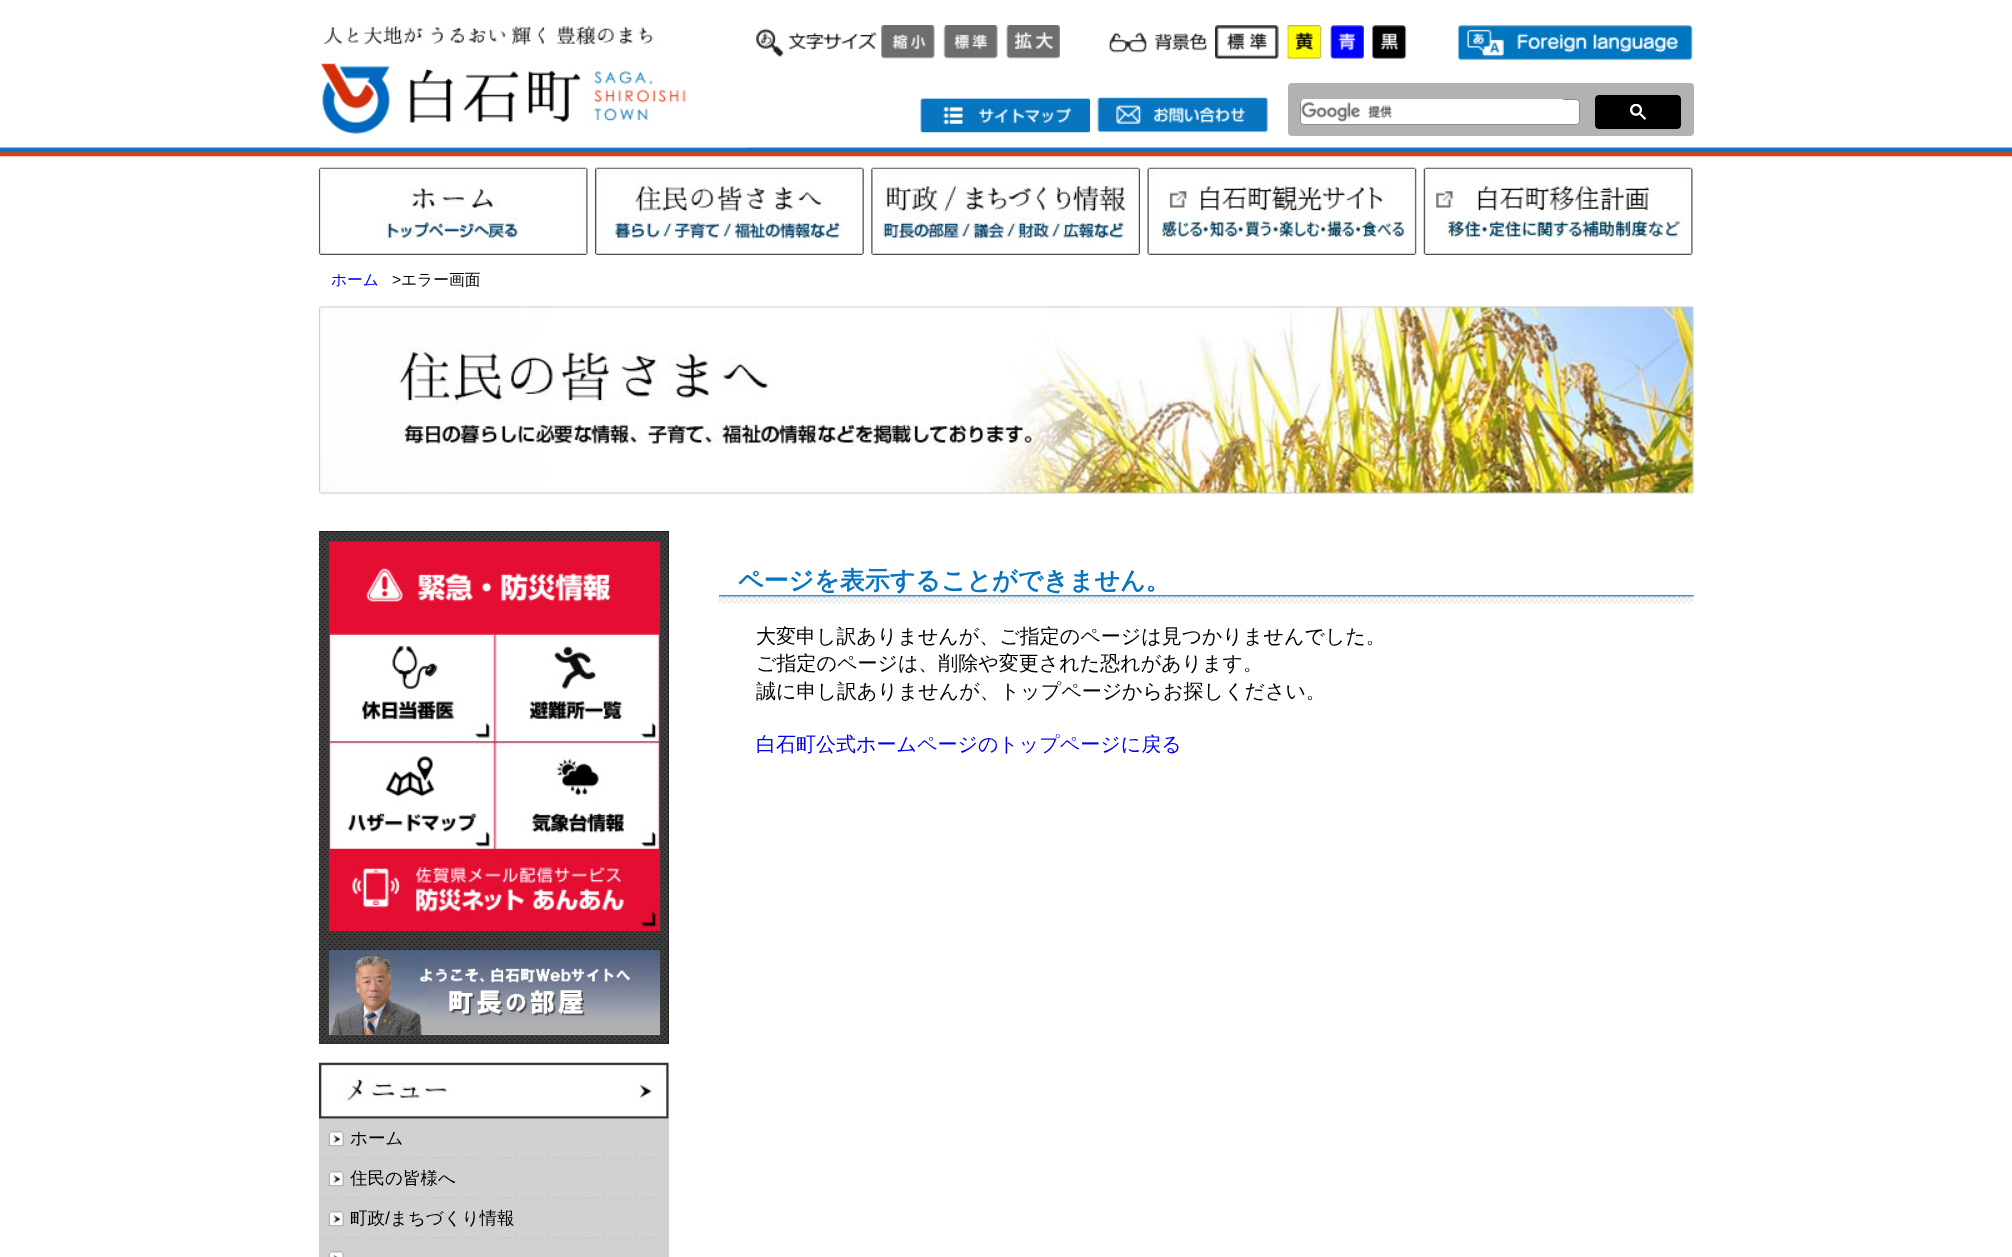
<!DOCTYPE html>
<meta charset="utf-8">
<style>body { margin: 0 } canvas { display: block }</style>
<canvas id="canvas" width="2012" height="1257"></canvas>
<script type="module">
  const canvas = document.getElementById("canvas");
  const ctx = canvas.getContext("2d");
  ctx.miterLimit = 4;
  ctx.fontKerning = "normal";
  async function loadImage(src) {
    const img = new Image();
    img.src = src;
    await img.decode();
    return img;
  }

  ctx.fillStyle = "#ffffff";
  ctx.fillRect(0, 0, 2012, 1257);
  ctx.drawImage(await loadImage("img1.png"), 0, 147, 2012, 10);
  ctx.drawImage(await loadImage("img2.png"), 319, 26, 430, 122);
  ctx.drawImage(await loadImage("img3.png"), 756, 28, 121, 29);
  ctx.drawImage(await loadImage("img4.png"), 881, 25, 54, 34);
  ctx.drawImage(await loadImage("img5.png"), 943, 25, 55, 34);
  ctx.drawImage(await loadImage("img6.png"), 1006, 25, 54, 34);
  ctx.drawImage(await loadImage("img7.png"), 1109, 32, 98, 21);
  ctx.drawImage(await loadImage("img8.png"), 1215, 25, 64, 34);
  ctx.drawImage(await loadImage("img9.png"), 1287, 25, 35, 34);
  ctx.drawImage(await loadImage("img10.png"), 1330, 25, 34, 34);
  ctx.drawImage(await loadImage("img11.png"), 1372, 25, 35, 34);
  ctx.drawImage(await loadImage("img12.png"), 1457, 25, 236, 35);
  ctx.drawImage(await loadImage("img13.png"), 920, 97, 170, 36);
  ctx.drawImage(await loadImage("img14.png"), 1097, 97, 171, 36);
  ctx.fillStyle = "#b2b2b2";
  ctx.beginPath();
  ctx.roundRect(1288, 83, 406, 53, 4);
  ctx.fill();
  ctx.fillStyle = "#ffffff";
  ctx.beginPath();
  ctx.roundRect(1300.5, 99.5, 279, 25, 3.5);
  ctx.fill();
  ctx.strokeStyle = "#8a8a8a";
  ctx.stroke();
  ctx.beginPath();
  ctx.roundRect(1301, 99, 264, 25, 4);
  ctx.fill();
  ctx.drawImage(await loadImage("img15.png"), 1301, 102, 91, 20);
  ctx.fillStyle = "#000000";
  ctx.beginPath();
  ctx.roundRect(1595.5, 95.5, 85, 33, 3.5);
  ctx.fill();
  ctx.strokeStyle = "#000000";
  ctx.stroke();
  ctx.drawImage(await loadImage("img16.png"), 1630, 104, 16, 16);
  ctx.drawImage(await loadImage("img17.png"), 318, 167, 270, 88);
  ctx.drawImage(await loadImage("img18.png"), 595, 167, 269, 88);
  ctx.drawImage(await loadImage("img19.png"), 871, 167, 269, 88);
  ctx.drawImage(await loadImage("img20.png"), 1147, 167, 270, 88);
  ctx.drawImage(await loadImage("img21.png"), 1423, 167, 270, 88);
  ctx.font = "500 15.75px WenQuanYi Zen Hei";
  ctx.fillStyle = "#0000ee";
  ctx.fillText("ホーム", 331, 285);
  ctx.font = "15.75px Liberation Sans";
  ctx.fillStyle = "#000000";
  ctx.fillText(">", 392, 285);
  ctx.font = "500 15.75px WenQuanYi Zen Hei";
  ctx.fillText("エラー画面", 401, 285);
  ctx.drawImage(await loadImage("img22.png"), 319, 306, 1375, 188);
  ctx.drawImage(await loadImage("img23.png"), 718, 595, 976, 9);
  ctx.font = "bold 25px WenQuanYi Zen Hei";
  ctx.fillStyle = "#0875c0";
  ctx.fillText("ページを表示することができません。", 738, 589);
  ctx.font = "500 20px WenQuanYi Zen Hei";
  ctx.fillStyle = "#000000";
  ctx.fillText("大変申し訳ありませんが、ご指定のページは見つかりませんでした。", 756, 643);
  ctx.fillText("ご指定のページは、削除や変更された恐れがあります。", 756, 670);
  ctx.fillText("誠に申し訳ありませんが、トップページからお探しください。", 756, 698);
  ctx.fillStyle = "#0000ee";
  ctx.fillText("白石町公式ホームページのトップページに戻る", 756, 751);
  ctx.fillStyle = "#000000";
  ctx.fillRect(319, 531, 350, 513);
  ctx.drawImage(await loadImage("img24.png"), 318, 531, 351, 513);
  ctx.drawImage(await loadImage("img25.png"), 328, 541, 332, 94);
  ctx.drawImage(await loadImage("img26.png"), 328, 635, 167, 108);
  ctx.drawImage(await loadImage("img27.png"), 495, 635, 165, 108);
  ctx.drawImage(await loadImage("img28.png"), 328, 742, 167, 108);
  ctx.drawImage(await loadImage("img29.png"), 495, 742, 165, 108);
  ctx.drawImage(await loadImage("img30.png"), 328, 850, 332, 82);
  ctx.drawImage(await loadImage("img31.png"), 328, 950, 332, 85);
  ctx.drawImage(await loadImage("img32.png"), 318, 1062, 351, 57);
  ctx.fillStyle = "#d1d1d1";
  ctx.fillRect(319, 1119, 350, 138);
  ctx.drawImage(await loadImage("img33.png"), 328, 1131, 16, 16);
  ctx.beginPath();
  ctx.moveTo(319, 1158);
  ctx.lineTo(669, 1158);
  ctx.strokeStyle = "#c4c4c4";
  ctx.lineWidth = 1.2;
  ctx.setLineDash([3.75, 2.55]);
  ctx.stroke();
  ctx.font = "500 17.5px WenQuanYi Zen Hei";
  ctx.fillStyle = "#000000";
  ctx.fillText("ホーム", 350, 1144);
  ctx.drawImage(await loadImage("img34.png"), 328, 1171, 16, 16);
  ctx.beginPath();
  ctx.moveTo(319, 1198);
  ctx.lineTo(669, 1198);
  ctx.stroke();
  ctx.fillText("住民の皆様へ", 350, 1184);
  ctx.drawImage(await loadImage("img33.png"), 328, 1211, 16, 16);
  ctx.beginPath();
  ctx.moveTo(319, 1238);
  ctx.lineTo(669, 1238);
  ctx.stroke();
  ctx.fillText("町政", 350, 1224);
  ctx.font = "17.5px Liberation Sans";
  ctx.fillText("/", 385, 1224);
  ctx.font = "500 17.5px WenQuanYi Zen Hei";
  ctx.fillText("まちづくり情報", 390, 1224);
  ctx.drawImage(await loadImage("img35.png"), 328, 1251, 16, 6);
</script>
